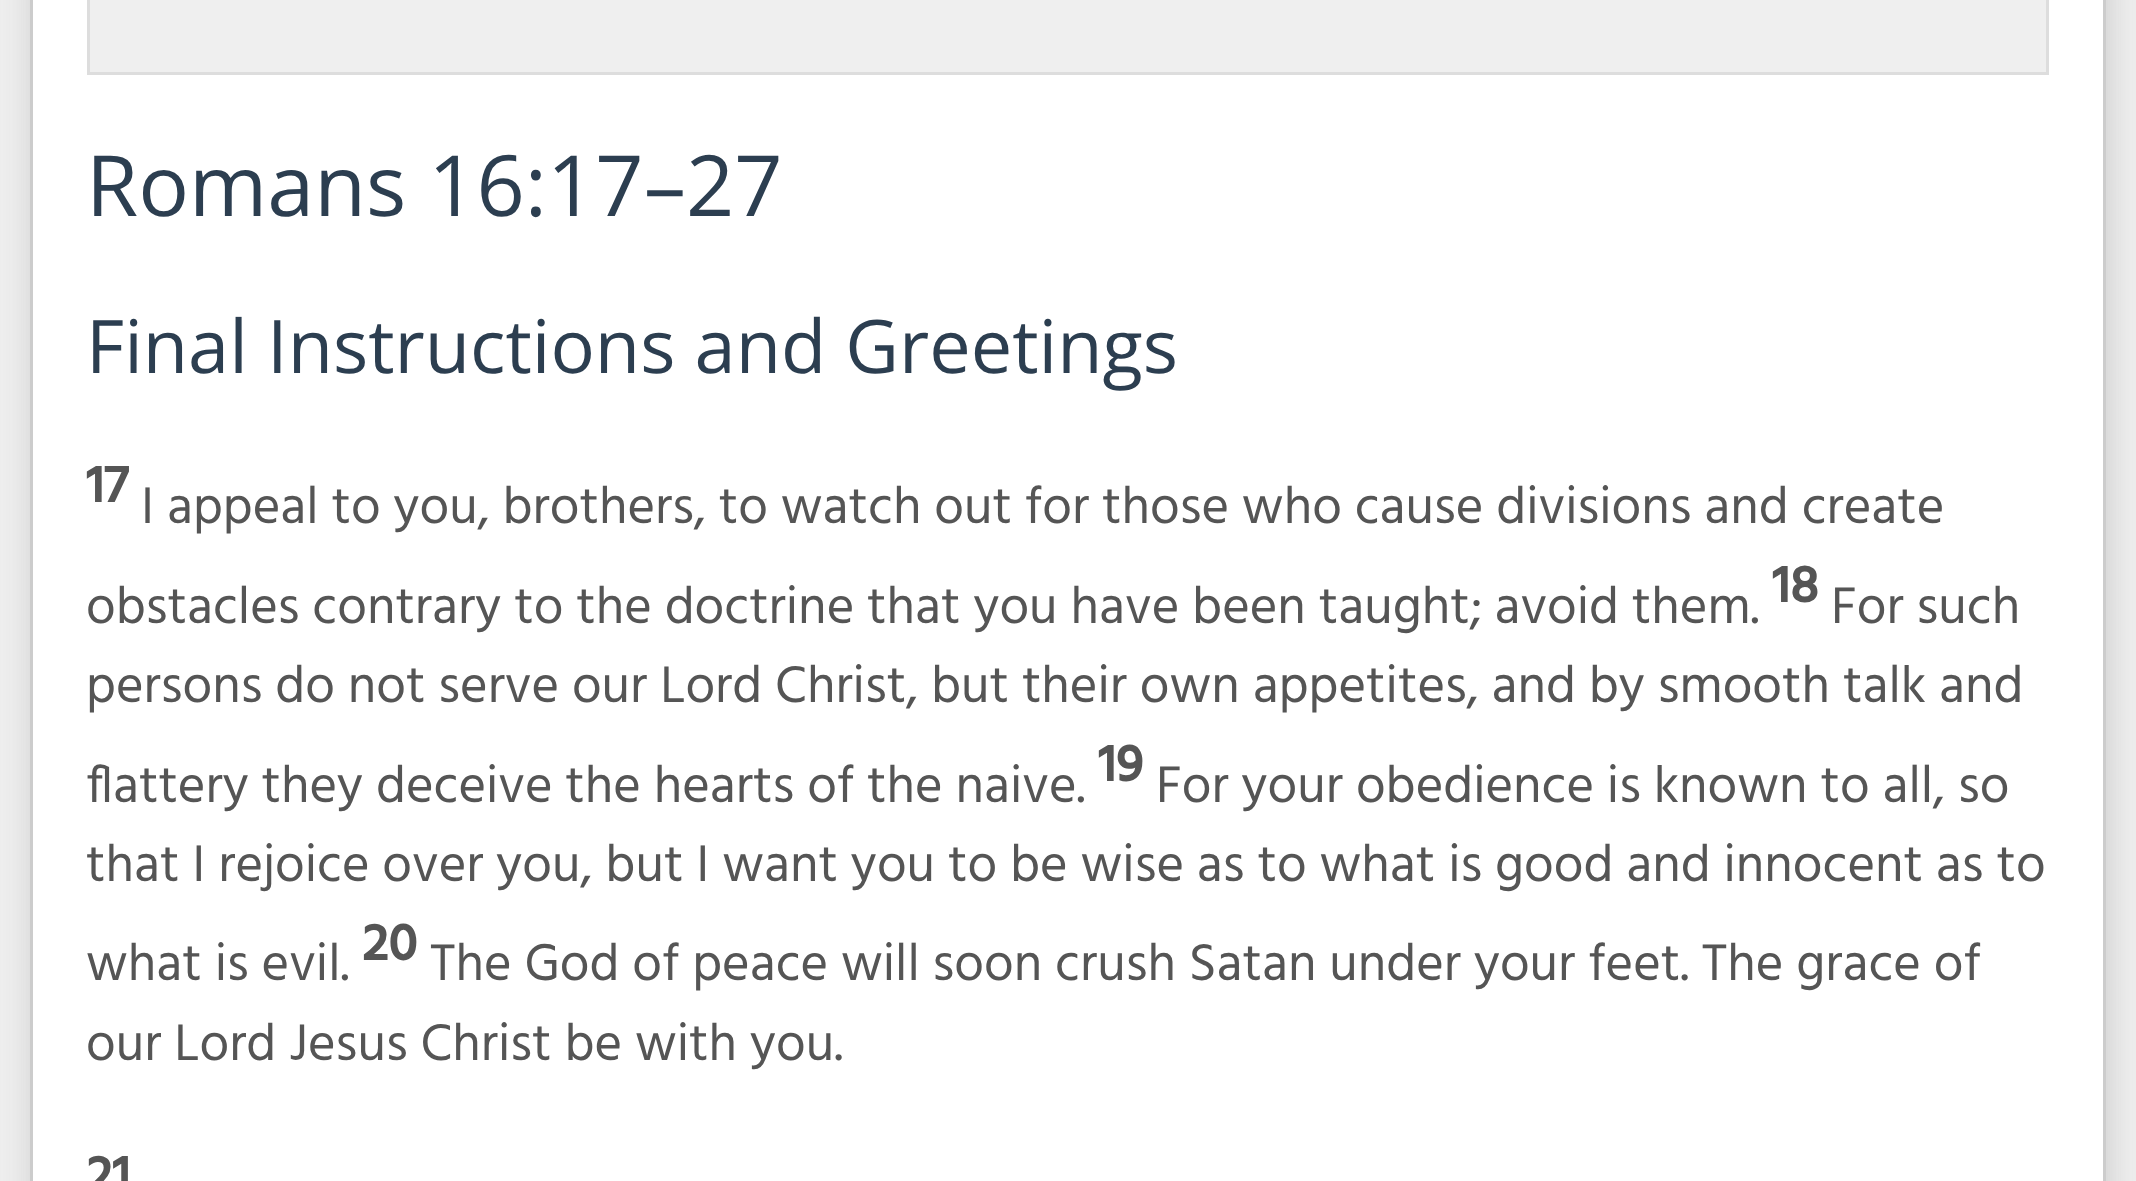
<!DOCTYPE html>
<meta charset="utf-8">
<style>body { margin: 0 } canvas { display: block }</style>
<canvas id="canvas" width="2136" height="1181"></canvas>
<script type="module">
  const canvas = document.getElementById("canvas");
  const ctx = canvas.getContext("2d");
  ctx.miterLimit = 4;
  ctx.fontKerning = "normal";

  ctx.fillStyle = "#eeeeee";
  ctx.fillRect(0, 0, 2136, 1181);
  ctx.fillStyle = "#cccccc";
  ctx.filter = "blur(15px)";
  ctx.beginPath();
  ctx.roundRect(33, -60, 2076, 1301, 15);
  ctx.fill();
  ctx.filter = "none";
  ctx.fillStyle = "#ffffff";
  ctx.beginPath();
  ctx.rect(31.5, -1.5, 2073, 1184);
  ctx.fill();
  ctx.strokeStyle = "#cccccc";
  ctx.lineWidth = 3;
  ctx.stroke();
  ctx.fillStyle = "#efefef";
  ctx.beginPath();
  ctx.rect(88.5, -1.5, 1959, 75);
  ctx.fill();
  ctx.strokeStyle = "#dddddd";
  ctx.stroke();
  ctx.font = "84.5px Open Sans";
  ctx.fillStyle = "#2c3e50";
  ctx.fillText("Romans 16:17–27", 86, 216);
  ctx.font = "73.9px Open Sans";
  ctx.fillText("Final Instructions and Greetings", 86, 373);
  ctx.font = "bold 52.8px Hind";
  ctx.fillStyle = "#555555";
  ctx.fillText("17", 86, 502);
  ctx.font = "52.8px Hind";
  ctx.fillText("I appeal to you, brothers, to watch out for those who cause divisions and create", 141, 523);
  ctx.fillText("obstacles contrary to the doctrine that you have been taught; avoid them.", 86, 623);
  ctx.font = "bold 52.8px Hind";
  ctx.fillText("18", 1772, 602);
  ctx.font = "52.8px Hind";
  ctx.fillText("For such", 1831, 623);
  ctx.fillText("persons do not serve our Lord Christ, but their own appetites, and by smooth talk and", 86, 702);
  ctx.fillText("flattery they deceive the hearts of the naive.", 86, 802);
  ctx.font = "bold 52.8px Hind";
  ctx.fillText("19", 1098, 781);
  ctx.font = "52.8px Hind";
  ctx.fillText("For your obedience is known to all, so", 1156, 802);
  ctx.fillText("that I rejoice over you, but I want you to be wise as to what is good and innocent as to", 86, 881);
  ctx.fillText("what is evil.", 86, 980);
  ctx.font = "bold 52.8px Hind";
  ctx.fillText("20", 362, 960);
  ctx.font = "52.8px Hind";
  ctx.fillText("The God of peace will soon crush Satan under your feet. The grace of", 430, 980);
  ctx.fillText("our Lord Jesus Christ be with you.", 86, 1060);
  ctx.font = "bold 52.8px Hind";
  ctx.fillText("21", 86, 1192);
</script>
